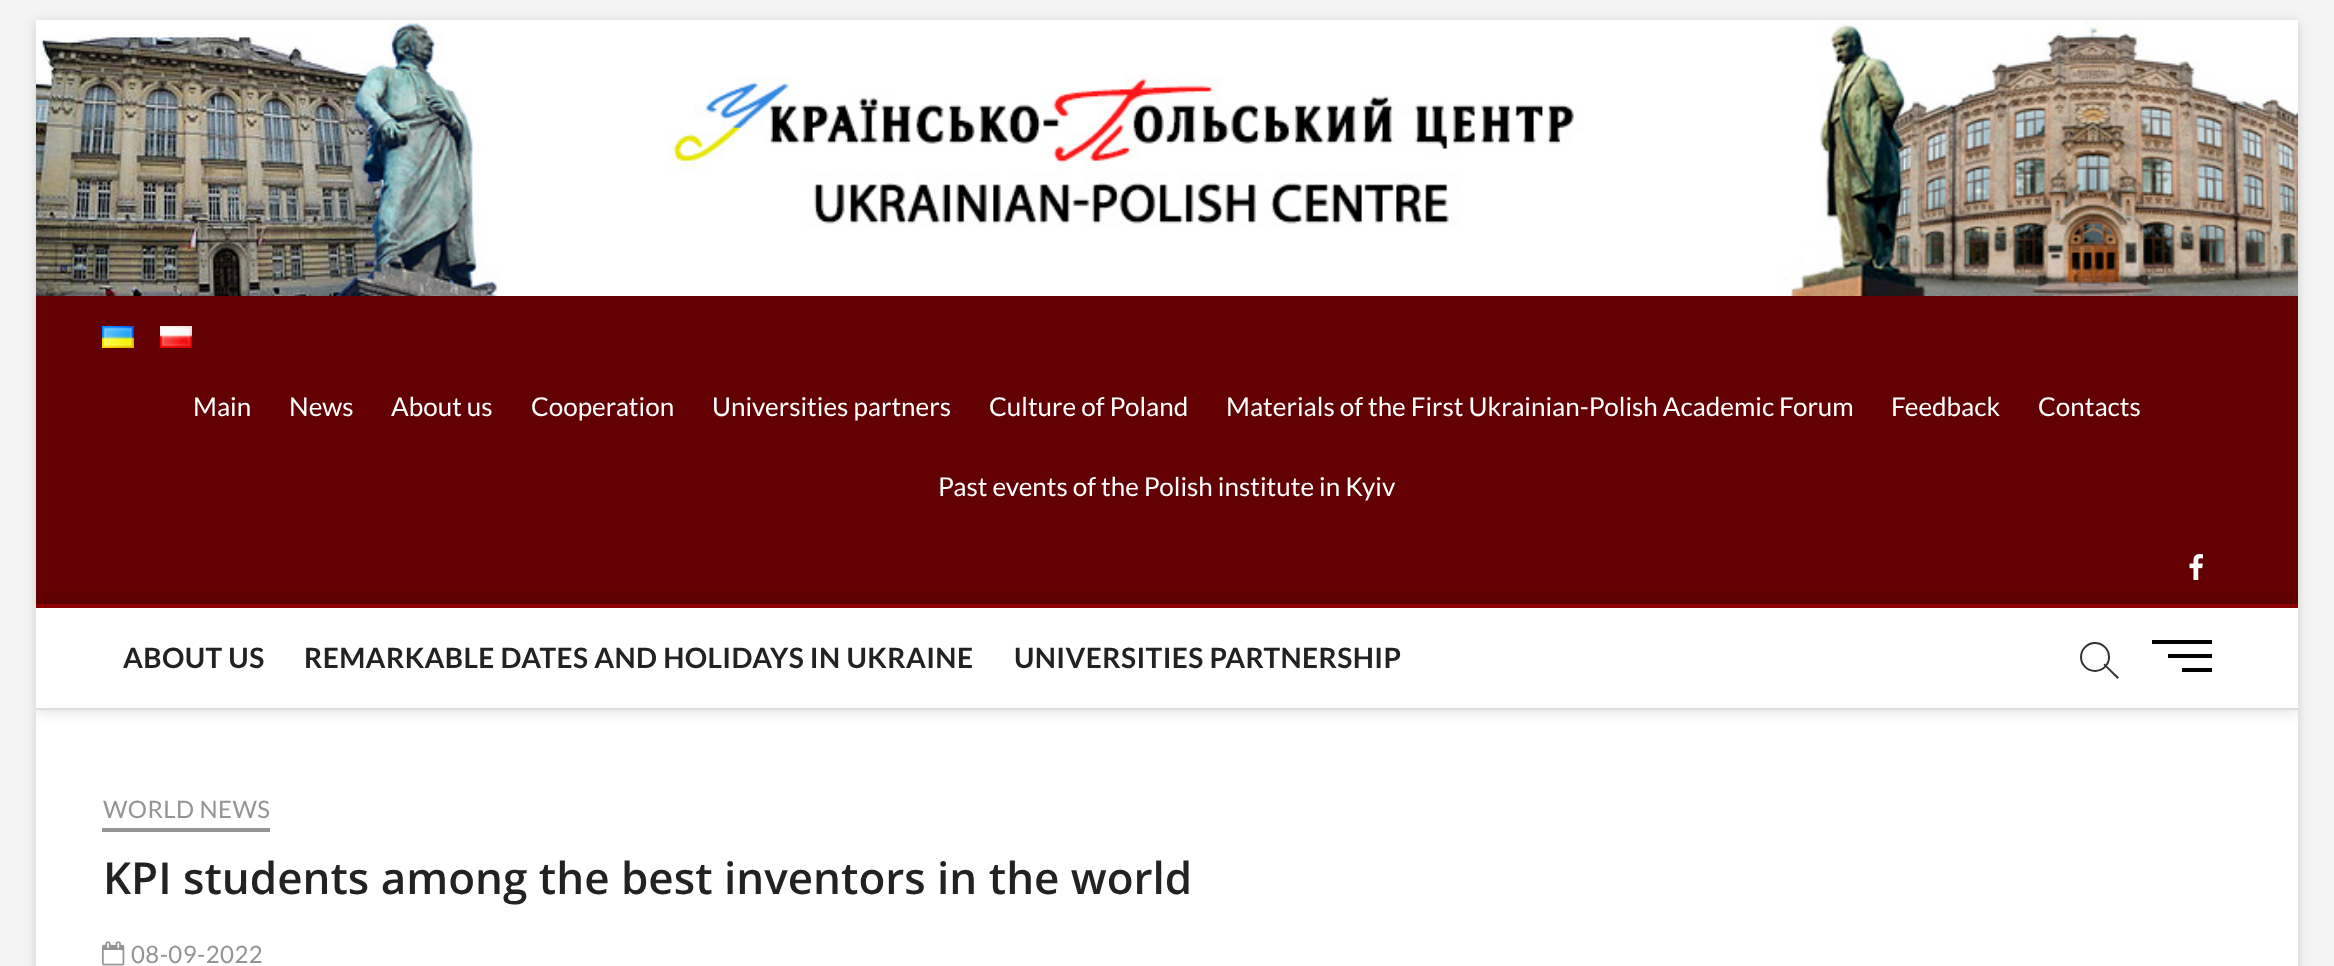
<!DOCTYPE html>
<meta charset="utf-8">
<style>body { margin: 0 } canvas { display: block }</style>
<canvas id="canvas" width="2334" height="966"></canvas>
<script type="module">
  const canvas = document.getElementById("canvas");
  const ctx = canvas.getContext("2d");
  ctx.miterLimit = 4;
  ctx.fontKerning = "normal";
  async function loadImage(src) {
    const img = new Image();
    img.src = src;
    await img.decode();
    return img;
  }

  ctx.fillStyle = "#f4f4f4";
  ctx.fillRect(0, 0, 2334, 966);
  ctx.fillStyle = "rgba(0, 0, 0, 0.15)";
  ctx.filter = "blur(6px)";
  ctx.beginPath();
  ctx.rect(36, 22, 2262, 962);
  ctx.fill();
  ctx.filter = "none";
  ctx.fillStyle = "#ffffff";
  ctx.fillRect(36, 608, 2262, 358);
  ctx.drawImage(await loadImage("img1.png"), 36, 20, 2262, 276);
  ctx.fillStyle = "#630003";
  ctx.fillRect(36, 296, 2262, 308);
  ctx.drawImage(await loadImage("img2.png"), 102, 326, 32, 22);
  ctx.drawImage(await loadImage("img3.png"), 160, 326, 32, 22);
  ctx.font = "26px Lato";
  ctx.fillStyle = "#ffffff";
  ctx.fillText("Main", 193, 416);
  ctx.fillText("News", 289, 416);
  ctx.fillText("About us", 391, 416);
  ctx.fillText("Cooperation", 531, 416);
  ctx.fillText("Universities partners", 712, 416);
  ctx.fillText("Culture of Poland", 989, 416);
  ctx.fillText("Materials of the First Ukrainian-Polish Academic Forum", 1226, 416);
  ctx.fillText("Feedback", 1891, 416);
  ctx.fillText("Contacts", 2038, 416);
  ctx.fillText("Past events of the Polish institute in Kyiv", 938, 496);
  ctx.save();
  ctx.beginPath();
  ctx.rect(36, 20, 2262, 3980);
  ctx.clip();
  ctx.beginPath();
  ctx.moveTo(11, 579);
  ctx.lineTo(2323, 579);
  ctx.lineTo(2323, 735);
  ctx.lineTo(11, 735);
  ctx.closePath();
  ctx.moveTo(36, 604);
  ctx.lineTo(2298, 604);
  ctx.lineTo(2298, 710);
  ctx.lineTo(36, 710);
  ctx.closePath();
  ctx.clip("evenodd");
  ctx.fillStyle = "rgba(0, 0, 0, 0.15)";
  ctx.filter = "blur(8px)";
  ctx.beginPath();
  ctx.rect(36, 604, 2262, 106);
  ctx.fill();
  ctx.filter = "none";
  ctx.restore();
  ctx.drawImage(await loadImage("img4.png"), 2189, 554, 14, 26);
  ctx.fillStyle = "#8c0004";
  ctx.fillRect(36, 604, 2262, 4);
  ctx.fillStyle = "#dddddd";
  ctx.fillRect(36, 708, 2262, 2);
  ctx.letterSpacing = "0.4px";
  ctx.font = "bold 28px Lato";
  ctx.fillStyle = "#222222";
  ctx.fillText("ABOUT US", 123, 668);
  ctx.fillText("REMARKABLE DATES AND HOLIDAYS IN UKRAINE", 304, 668);
  ctx.fillText("UNIVERSITIES PARTNERSHIP", 1014, 668);
  ctx.beginPath();
  ctx.arc(2095, 657, 14, 0, Math.PI * 2);
  ctx.strokeStyle = "#333333";
  ctx.lineWidth = 2;
  ctx.stroke();
  ctx.fillStyle = "#333333";
  ctx.beginPath();
  ctx.moveTo(2103.5, 665);
  ctx.lineTo(2104.5, 663.5);
  ctx.lineTo(2119, 677.5);
  ctx.lineTo(2117.5, 679);
  ctx.closePath();
  ctx.fill();
  ctx.fillStyle = "#000000";
  ctx.fillRect(2168, 654, 44, 4);
  ctx.fillRect(2152, 640, 60, 4);
  ctx.fillRect(2182, 668, 30, 4);
  ctx.font = "24px Lato";
  ctx.fillStyle = "#949494";
  ctx.fillText("WORLD NEWS", 103, 818);
  ctx.fillRect(102, 828, 168, 4);
  ctx.letterSpacing = "0px";
  ctx.font = "600 44px Open Sans";
  ctx.fillStyle = "#222222";
  ctx.fillText("KPI students among the best inventors in the world", 103, 894);
  ctx.drawImage(await loadImage("img5.png"), 102, 941, 23, 25);
  ctx.letterSpacing = "0.4px";
  ctx.font = "24px Lato";
  ctx.fillStyle = "#949494";
  ctx.fillText("08-09-2022", 131, 963);
</script>
